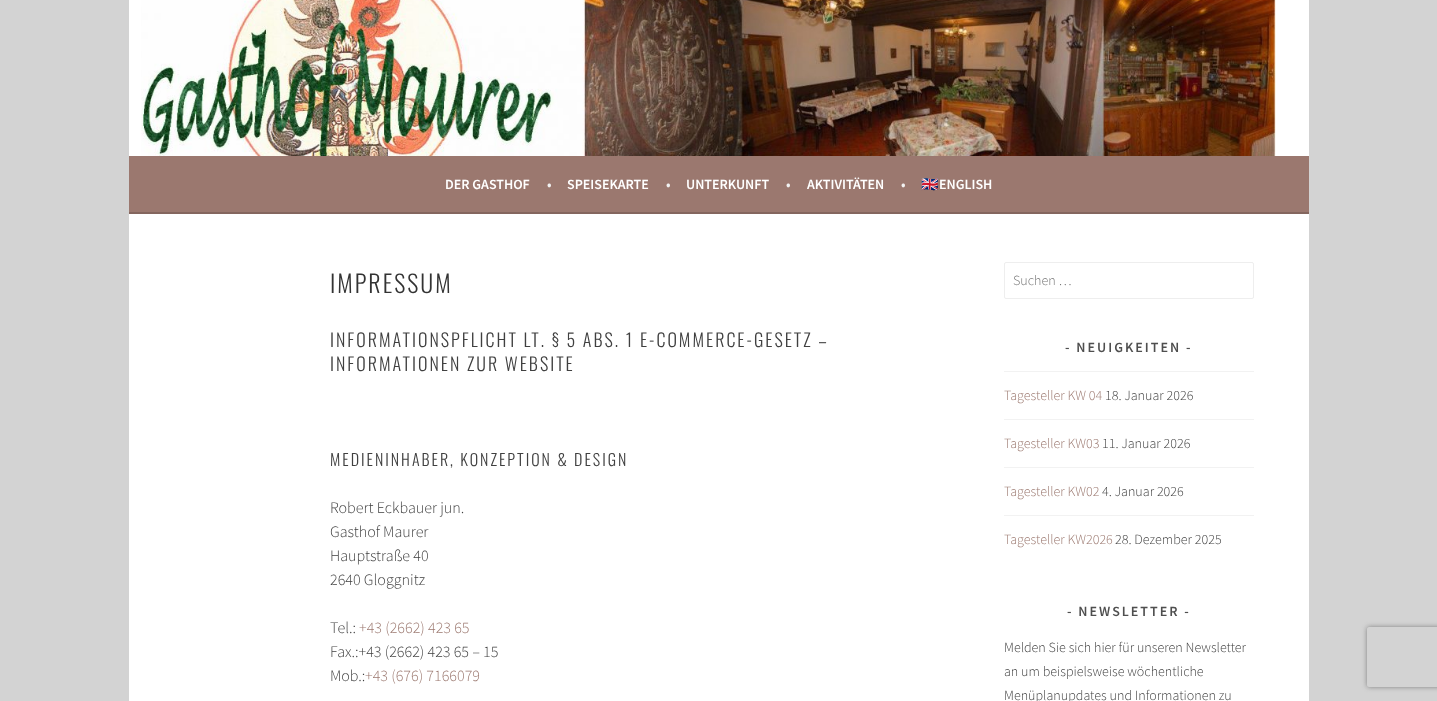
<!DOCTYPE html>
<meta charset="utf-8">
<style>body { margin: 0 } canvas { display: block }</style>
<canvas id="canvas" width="1437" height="701"></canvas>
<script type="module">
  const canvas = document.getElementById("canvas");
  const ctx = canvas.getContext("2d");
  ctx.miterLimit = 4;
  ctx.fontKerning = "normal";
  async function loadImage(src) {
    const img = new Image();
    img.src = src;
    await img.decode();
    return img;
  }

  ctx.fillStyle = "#d3d3d3";
  ctx.fillRect(0, 0, 1437, 701);
  ctx.fillStyle = "#ffffff";
  ctx.fillRect(129, 0, 1180, 156);
  ctx.drawImage(await loadImage("img1.png"), 141, 0, 1135, 156);
  ctx.fillStyle = "#9b786f";
  ctx.fillRect(129, 156, 1180, 56);
  ctx.fillStyle = "#84665e";
  ctx.fillRect(129, 212, 1180, 2);
  ctx.font = "600 14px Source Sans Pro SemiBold";
  ctx.fillStyle = "#ffffff";
  ctx.fillText("DER GASTHOF", 445, 189);
  ctx.fillStyle = "#f2f2f2";
  ctx.fillText("•", 547, 189);
  ctx.fillStyle = "#ffffff";
  ctx.fillText("SPEISEKARTE", 567, 189);
  ctx.fillStyle = "#f2f2f2";
  ctx.fillText("•", 666, 189);
  ctx.fillStyle = "#ffffff";
  ctx.fillText("UNTERKUNFT", 686, 189);
  ctx.fillStyle = "#f2f2f2";
  ctx.fillText("•", 786, 189);
  ctx.fillStyle = "#ffffff";
  ctx.fillText("AKTIVITÄTEN", 807, 189);
  ctx.fillStyle = "#f2f2f2";
  ctx.fillText("•", 901, 189);
  ctx.font = "bold 14px Noto Color Emoji";
  ctx.fillStyle = "#ffffff";
  ctx.fillText("🇬🇧", 921, 189);
  ctx.font = "600 14px Source Sans Pro SemiBold";
  ctx.fillText("ENGLISH", 939, 189);
  ctx.fillRect(129, 214, 1180, 487);
  ctx.letterSpacing = "2px";
  ctx.font = "300 24px Oswald";
  ctx.fillStyle = "#333333";
  ctx.fillText("IMPRESSUM", 330, 293);
  ctx.font = "300 18px Oswald";
  ctx.fillStyle = "#404040";
  ctx.fillText("INFORMATIONSPFLICHT LT. § 5 ABS. 1 E-COMMERCE-GESETZ –", 330, 347);
  ctx.fillText("INFORMATIONEN ZUR WEBSITE", 330, 371);
  ctx.font = "300 16px Oswald";
  ctx.fillText("MEDIENINHABER, KONZEPTION & DESIGN", 330, 466);
  ctx.letterSpacing = "0px";
  ctx.font = "300 16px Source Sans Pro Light";
  ctx.fillText("Robert Eckbauer jun.", 330, 513);
  ctx.fillText("Gasthof Maurer", 330, 537);
  ctx.fillText("Hauptstraße 40", 330, 561);
  ctx.fillText("2640 Gloggnitz", 330, 585);
  ctx.fillText("Tel.:", 330, 633);
  ctx.fillStyle = "#9b786f";
  ctx.fillText("+43 (2662) 423 65", 359, 633);
  ctx.fillStyle = "#404040";
  ctx.fillText("Fax.:+43 (2662) 423 65 – 15", 330, 657);
  ctx.fillText("Mob.:", 330, 681);
  ctx.fillStyle = "#9b786f";
  ctx.fillText("+43 (676) 7166079", 365, 681);
  ctx.beginPath();
  ctx.roundRect(1004.5, 262.5, 249, 36, 1.5);
  ctx.strokeStyle = "#eeeeee";
  ctx.stroke();
  ctx.font = "300 14px Source Sans Pro Light";
  ctx.fillStyle = "#757575";
  ctx.fillText("Suchen …", 1013, 285);
  ctx.letterSpacing = "2px";
  ctx.font = "600 14px Source Sans Pro SemiBold";
  ctx.fillStyle = "#4f4f4f";
  ctx.fillText("- NEUIGKEITEN -", 1065, 352);
  ctx.fillStyle = "#f2f2f2";
  ctx.fillRect(1004, 371, 250, 1);
  ctx.letterSpacing = "0px";
  ctx.font = "300 14px Source Sans Pro Light";
  ctx.fillStyle = "#9b786f";
  ctx.fillText("Tagesteller KW 04", 1004, 400);
  ctx.fillStyle = "#404040";
  ctx.fillText("18. Januar 2026", 1105, 400);
  ctx.fillStyle = "#f2f2f2";
  ctx.fillRect(1004, 419, 250, 1);
  ctx.fillStyle = "#9b786f";
  ctx.fillText("Tagesteller KW03", 1004, 448);
  ctx.fillStyle = "#404040";
  ctx.fillText("11. Januar 2026", 1102, 448);
  ctx.fillStyle = "#f2f2f2";
  ctx.fillRect(1004, 467, 250, 1);
  ctx.fillStyle = "#9b786f";
  ctx.fillText("Tagesteller KW02", 1004, 496);
  ctx.fillStyle = "#404040";
  ctx.fillText("4. Januar 2026", 1102, 496);
  ctx.fillStyle = "#f2f2f2";
  ctx.fillRect(1004, 515, 250, 1);
  ctx.fillStyle = "#9b786f";
  ctx.fillText("Tagesteller KW2026", 1004, 544);
  ctx.fillStyle = "#404040";
  ctx.fillText("28. Dezember 2025", 1115, 544);
  ctx.letterSpacing = "2px";
  ctx.font = "600 14px Source Sans Pro SemiBold";
  ctx.fillStyle = "#4f4f4f";
  ctx.fillText("- NEWSLETTER -", 1067, 616);
  ctx.letterSpacing = "0px";
  ctx.font = "300 14px Source Sans Pro Light";
  ctx.fillStyle = "#404040";
  ctx.fillText("Melden Sie sich hier für unseren Newsletter", 1004, 652);
  ctx.fillText("an um beispielsweise wöchentliche", 1004, 676);
  ctx.fillText("Menüplanupdates und Informationen zu", 1004, 700);
  ctx.save();
  ctx.beginPath();
  ctx.moveTo(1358, 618);
  ctx.lineTo(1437, 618);
  ctx.lineTo(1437, 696);
  ctx.lineTo(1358, 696);
  ctx.closePath();
  ctx.moveTo(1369, 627);
  ctx.lineTo(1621, 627);
  ctx.bezierCurveTo(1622, 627, 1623, 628, 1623, 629);
  ctx.lineTo(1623, 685);
  ctx.bezierCurveTo(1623, 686, 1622, 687, 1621, 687);
  ctx.lineTo(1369, 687);
  ctx.bezierCurveTo(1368, 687, 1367, 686, 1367, 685);
  ctx.lineTo(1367, 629);
  ctx.bezierCurveTo(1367, 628, 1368, 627, 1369, 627);
  ctx.closePath();
  ctx.clip("evenodd");
  ctx.fillStyle = "#808080";
  ctx.filter = "blur(2.5px)";
  ctx.beginPath();
  ctx.roundRect(1367, 627, 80, 60, 2);
  ctx.fill();
  ctx.filter = "none";
  ctx.restore();
</script>
